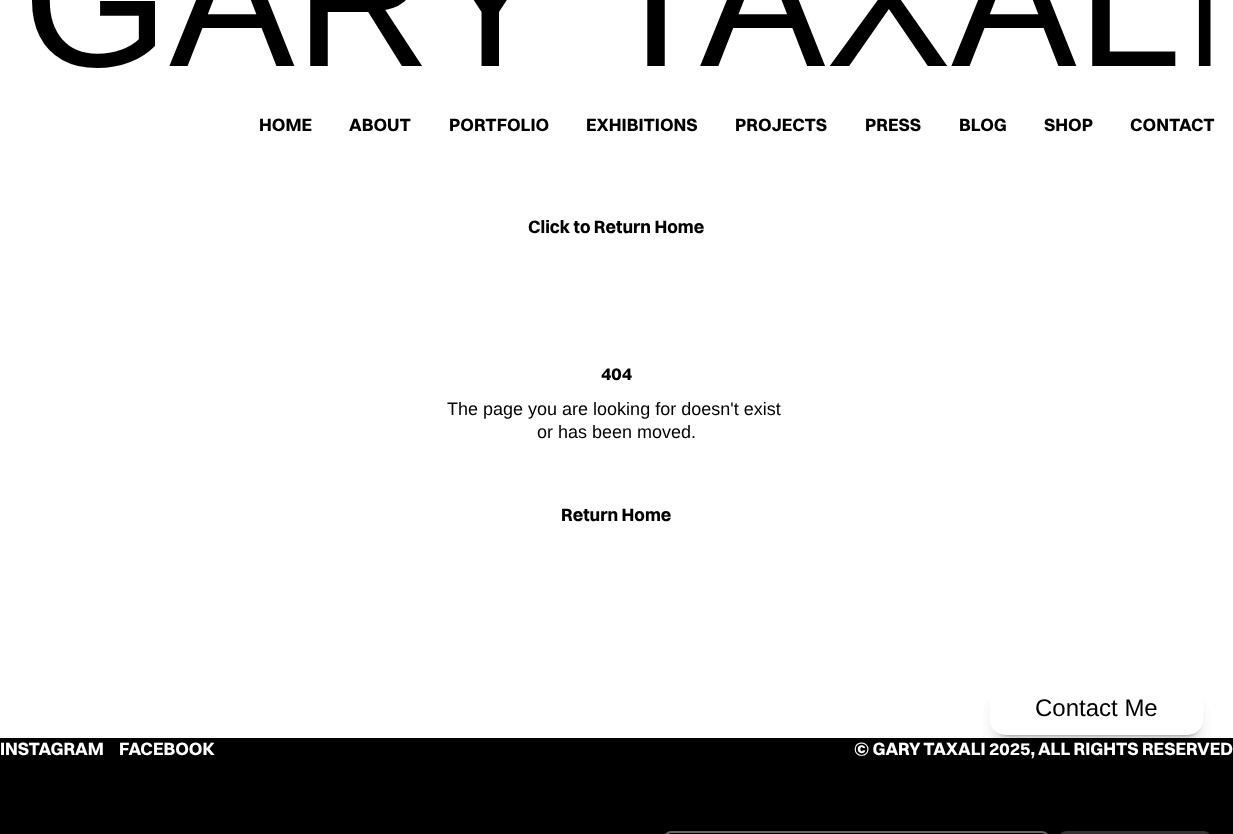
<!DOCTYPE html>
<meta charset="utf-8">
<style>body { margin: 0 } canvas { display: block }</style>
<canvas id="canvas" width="1233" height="834"></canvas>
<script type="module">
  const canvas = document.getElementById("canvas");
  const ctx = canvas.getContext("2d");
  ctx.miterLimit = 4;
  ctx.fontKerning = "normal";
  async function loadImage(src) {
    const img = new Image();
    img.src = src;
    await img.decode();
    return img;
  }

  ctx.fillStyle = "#ffffff";
  ctx.fillRect(0, 0, 1233, 834);
  ctx.drawImage(await loadImage("img1.png"), 32, 0, 1179, 68);
  ctx.font = "bold 18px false";
  ctx.fillStyle = "#000000";
  ctx.fillText("HOME", 259, 131);
  ctx.fillText("ABOUT", 349, 131);
  ctx.fillText("PORTFOLIO", 449, 131);
  ctx.fillText("EXHIBITIONS", 586, 131);
  ctx.fillText("PROJECTS", 735, 131);
  ctx.fillText("PRESS", 865, 131);
  ctx.fillText("BLOG", 959, 131);
  ctx.fillText("SHOP", 1044, 131);
  ctx.fillText("CONTACT", 1130, 131);
  ctx.fillText("Click to Return Home", 528, 233);
  ctx.fillText("404", 601, 380);
  ctx.font = "18px Liberation Sans";
  ctx.fillText("The page you are looking for doesn't exist", 447, 415);
  ctx.fillText("or has been moved.", 537, 438);
  ctx.font = "bold 18px false";
  ctx.fillText("Return Home", 561, 521);
  ctx.fillRect(0, 738, 1233, 96);
  ctx.fillStyle = "rgba(0, 0, 0, 0.05)";
  ctx.filter = "blur(7.5px)";
  ctx.beginPath();
  ctx.roundRect(996, 702, 201, 42, 9);
  ctx.fill();
  ctx.filter = "none";
  ctx.fillStyle = "rgba(0, 0, 0, 0.12)";
  ctx.filter = "blur(1.5px)";
  ctx.beginPath();
  ctx.roundRect(995, 689, 205, 46, 12);
  ctx.fill();
  ctx.filter = "none";
  ctx.fillStyle = "rgba(0, 0, 0, 0.06)";
  ctx.filter = "blur(7.5px)";
  ctx.beginPath();
  ctx.roundRect(996, 702, 201, 42, 9);
  ctx.fill();
  ctx.filter = "none";
  ctx.fillStyle = "rgba(0, 0, 0, 0.15)";
  ctx.filter = "blur(1.5px)";
  ctx.beginPath();
  ctx.roundRect(995, 689, 205, 46, 12);
  ctx.fill();
  ctx.filter = "none";
  ctx.fillStyle = "rgba(0, 0, 0, 0.07)";
  ctx.filter = "blur(7.5px)";
  ctx.beginPath();
  ctx.roundRect(996, 702, 201, 42, 9);
  ctx.fill();
  ctx.filter = "none";
  ctx.fillStyle = "rgba(0, 0, 0, 0.17)";
  ctx.filter = "blur(1.5px)";
  ctx.beginPath();
  ctx.roundRect(995, 689, 205, 46, 12);
  ctx.fill();
  ctx.filter = "none";
  ctx.fillStyle = "#ffffff";
  ctx.beginPath();
  ctx.roundRect(990, 681, 213, 54, 15);
  ctx.fill();
  ctx.font = "24px Liberation Sans";
  ctx.fillStyle = "#000000";
  ctx.fillText("Contact Me", 1035, 716);
  ctx.font = "bold 18px false";
  ctx.fillStyle = "#ffffff";
  ctx.fillText("INSTAGRAM", 0, 755);
  ctx.fillText("FACEBOOK", 119, 755);
  ctx.fillText("© GARY TAXALI 2025, ALL RIGHTS RESERVED", 854, 755);
  ctx.beginPath();
  ctx.roundRect(664, 832, 385, 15, 11);
  ctx.strokeStyle = "#646464";
  ctx.lineWidth = 2;
  ctx.stroke();
  ctx.fillStyle = "#333333";
  ctx.beginPath();
  ctx.roundRect(1059, 831, 152, 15, 12);
  ctx.fill();
</script>
